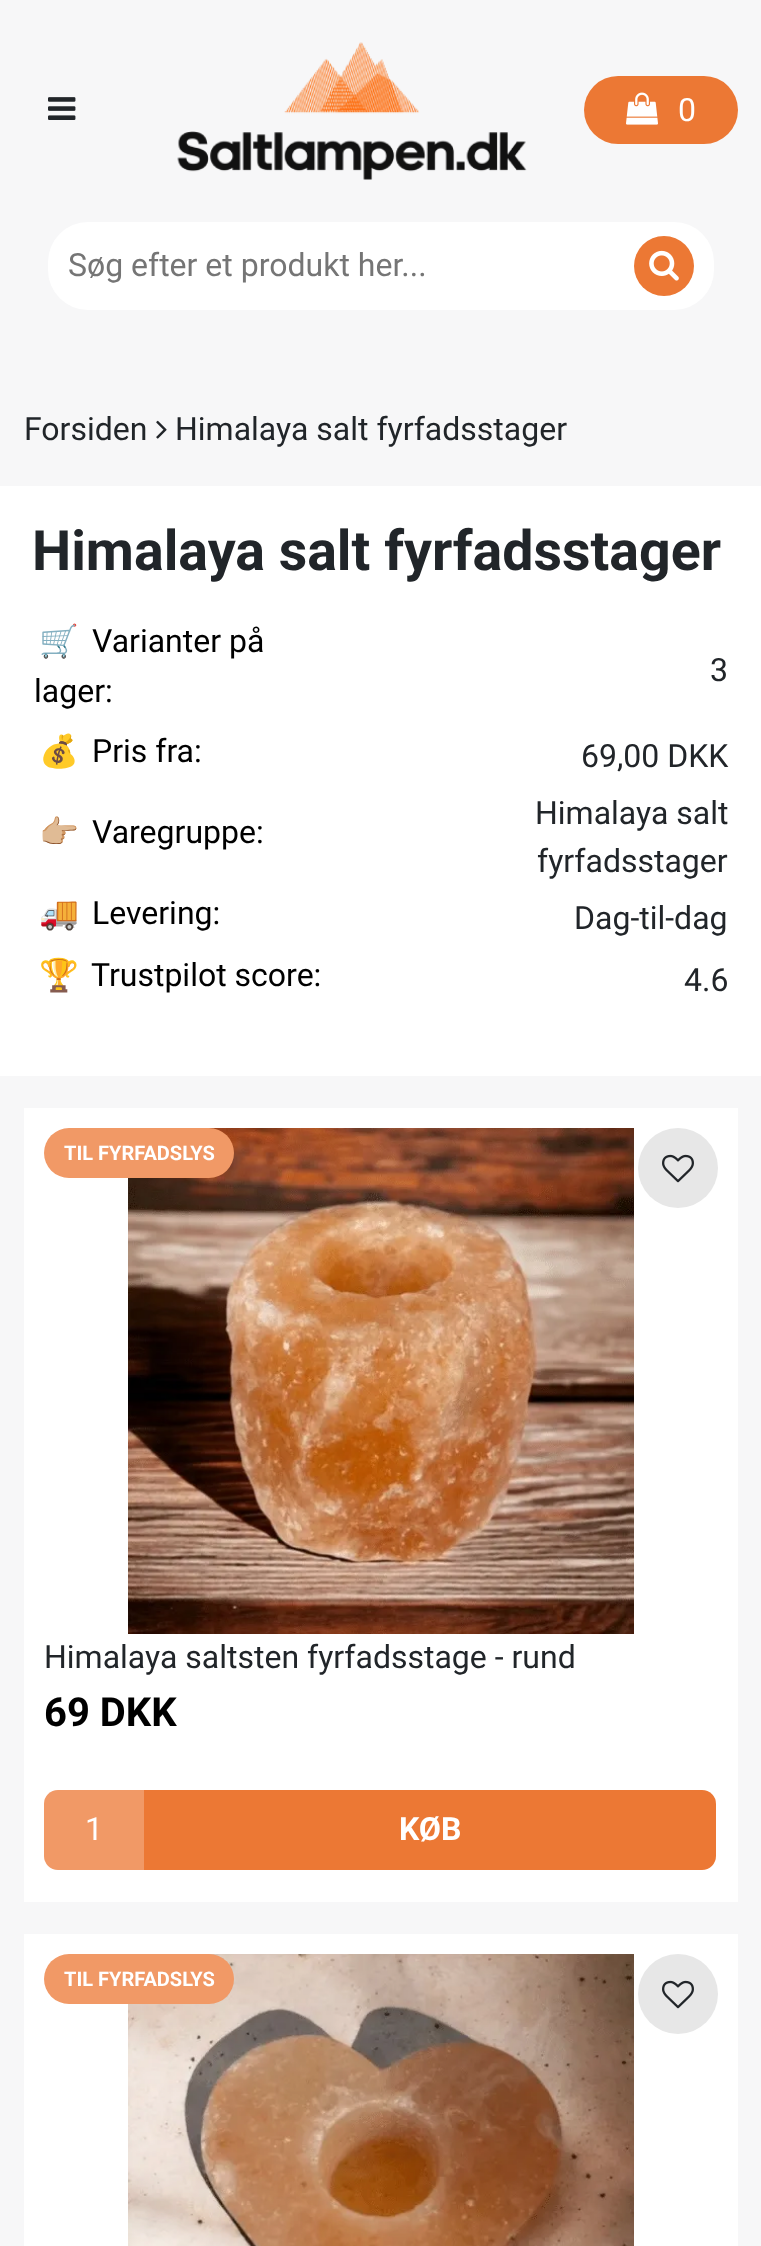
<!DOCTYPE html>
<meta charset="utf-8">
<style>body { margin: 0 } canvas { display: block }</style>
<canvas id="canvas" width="761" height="2246"></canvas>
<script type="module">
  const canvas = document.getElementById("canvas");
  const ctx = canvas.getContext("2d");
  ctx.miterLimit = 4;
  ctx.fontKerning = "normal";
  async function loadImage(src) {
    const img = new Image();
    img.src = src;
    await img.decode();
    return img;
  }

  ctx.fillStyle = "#f7f7f8";
  ctx.fillRect(0, 0, 761, 2246);
  ctx.drawImage(await loadImage("img1.png"), 48, 97, 28, 23);
  ctx.drawImage(await loadImage("img2.png"), 177, 42, 350, 138);
  ctx.fillStyle = "#ec7834";
  ctx.beginPath();
  ctx.roundRect(584, 76, 154, 68, 34);
  ctx.fill();
  ctx.drawImage(await loadImage("img3.png"), 626, 92, 32, 33);
  ctx.font = "32px Roboto";
  ctx.fillStyle = "#ffffff";
  ctx.fillText("0", 678, 121);
  ctx.beginPath();
  ctx.roundRect(48, 222, 666, 88, 40);
  ctx.fill();
  ctx.fillStyle = "#757575";
  ctx.fillText("Søg efter et produkt her...", 68, 276);
  ctx.fillStyle = "#ec7834";
  ctx.beginPath();
  ctx.arc(664, 266, 30, 0, Math.PI * 2);
  ctx.fill();
  ctx.drawImage(await loadImage("img4.png"), 649, 250, 30, 31);
  ctx.fillStyle = "#212529";
  ctx.fillText("Forsiden", 24, 440);
  ctx.drawImage(await loadImage("img5.png"), 156, 420, 11, 19);
  ctx.fillText("Himalaya salt fyrfadsstager", 175, 440);
  ctx.fillStyle = "#ffffff";
  ctx.fillRect(0, 486, 761, 590);
  ctx.font = "bold 55.5px Roboto";
  ctx.fillStyle = "#212529";
  ctx.fillText("Himalaya salt fyrfadsstager", 32, 570);
  ctx.font = "32px Noto Color Emoji";
  ctx.fillStyle = "#000000";
  ctx.fillText("🛒", 39, 652);
  ctx.font = "32px Roboto";
  ctx.fillText("Varianter på", 92, 652);
  ctx.fillText("lager:", 34, 702);
  ctx.fillStyle = "#212529";
  ctx.fillText("3", 710, 681);
  ctx.font = "32px Noto Color Emoji";
  ctx.fillStyle = "#000000";
  ctx.fillText("💰", 39, 762);
  ctx.font = "32px Roboto";
  ctx.fillText("Pris fra:", 92, 762);
  ctx.fillStyle = "#212529";
  ctx.fillText("69,00 DKK", 581, 767);
  ctx.font = "32px Noto Color Emoji";
  ctx.fillStyle = "#000000";
  ctx.fillText("👉🏼", 39, 843);
  ctx.font = "32px Roboto";
  ctx.fillText("Varegruppe:", 92, 843);
  ctx.fillStyle = "#212529";
  ctx.fillText("Himalaya salt", 535, 824);
  ctx.fillText("fyrfadsstager", 537, 872);
  ctx.font = "32px Noto Color Emoji";
  ctx.fillStyle = "#000000";
  ctx.fillText("🚚", 39, 924);
  ctx.font = "32px Roboto";
  ctx.fillText("Levering:", 92, 924);
  ctx.fillStyle = "#212529";
  ctx.fillText("Dag-til-dag", 574, 929);
  ctx.font = "32px Noto Color Emoji";
  ctx.fillStyle = "#000000";
  ctx.fillText("🏆", 39, 986);
  ctx.font = "32px Roboto";
  ctx.fillText("Trustpilot score:", 91, 986);
  ctx.fillStyle = "#212529";
  ctx.fillText("4.6", 684, 991);
  ctx.fillStyle = "#ffffff";
  ctx.fillRect(24, 1108, 714, 794);
  ctx.drawImage(await loadImage("img6.png"), 128, 1128, 506, 506);
  ctx.fillStyle = "#e7e7e7";
  ctx.beginPath();
  ctx.arc(678, 1168, 40, 0, Math.PI * 2);
  ctx.fill();
  ctx.drawImage(await loadImage("img7.png"), 662, 1154, 32, 29);
  ctx.fillStyle = "#f19966";
  ctx.beginPath();
  ctx.roundRect(44, 1128, 190, 50, 25);
  ctx.fill();
  ctx.font = "bold 20px Roboto";
  ctx.fillStyle = "#ffffff";
  ctx.fillText("TIL FYRFADSLYS", 64, 1160);
  ctx.font = "32px Roboto";
  ctx.fillStyle = "#212529";
  ctx.fillText("Himalaya saltsten fyrfadsstage - rund", 44, 1668);
  ctx.font = "bold 40px Roboto";
  ctx.fillStyle = "#000000";
  ctx.fillText("69 DKK", 44, 1726);
  ctx.fillStyle = "#f19966";
  ctx.beginPath();
  ctx.roundRect(44, 1790, 100, 80, [14, 0, 0, 14]);
  ctx.fill();
  ctx.font = "32px Roboto";
  ctx.fillStyle = "#ffffff";
  ctx.fillText("1", 85, 1840);
  ctx.fillStyle = "#ec7834";
  ctx.beginPath();
  ctx.roundRect(144, 1790, 572, 80, [0, 14, 14, 0]);
  ctx.fill();
  ctx.font = "bold 32px Roboto";
  ctx.fillStyle = "#ffffff";
  ctx.fillText("KØB", 399, 1840);
  ctx.fillRect(24, 1934, 714, 312);
  ctx.drawImage(await loadImage("img8.png"), 128, 1954, 506, 292);
  ctx.fillStyle = "#e7e7e7";
  ctx.beginPath();
  ctx.arc(678, 1994, 40, 0, Math.PI * 2);
  ctx.fill();
  ctx.drawImage(await loadImage("img7.png"), 662, 1980, 32, 29);
  ctx.fillStyle = "#f19966";
  ctx.beginPath();
  ctx.roundRect(44, 1954, 190, 50, 25);
  ctx.fill();
  ctx.font = "bold 20px Roboto";
  ctx.fillStyle = "#ffffff";
  ctx.fillText("TIL FYRFADSLYS", 64, 1986);
</script>
